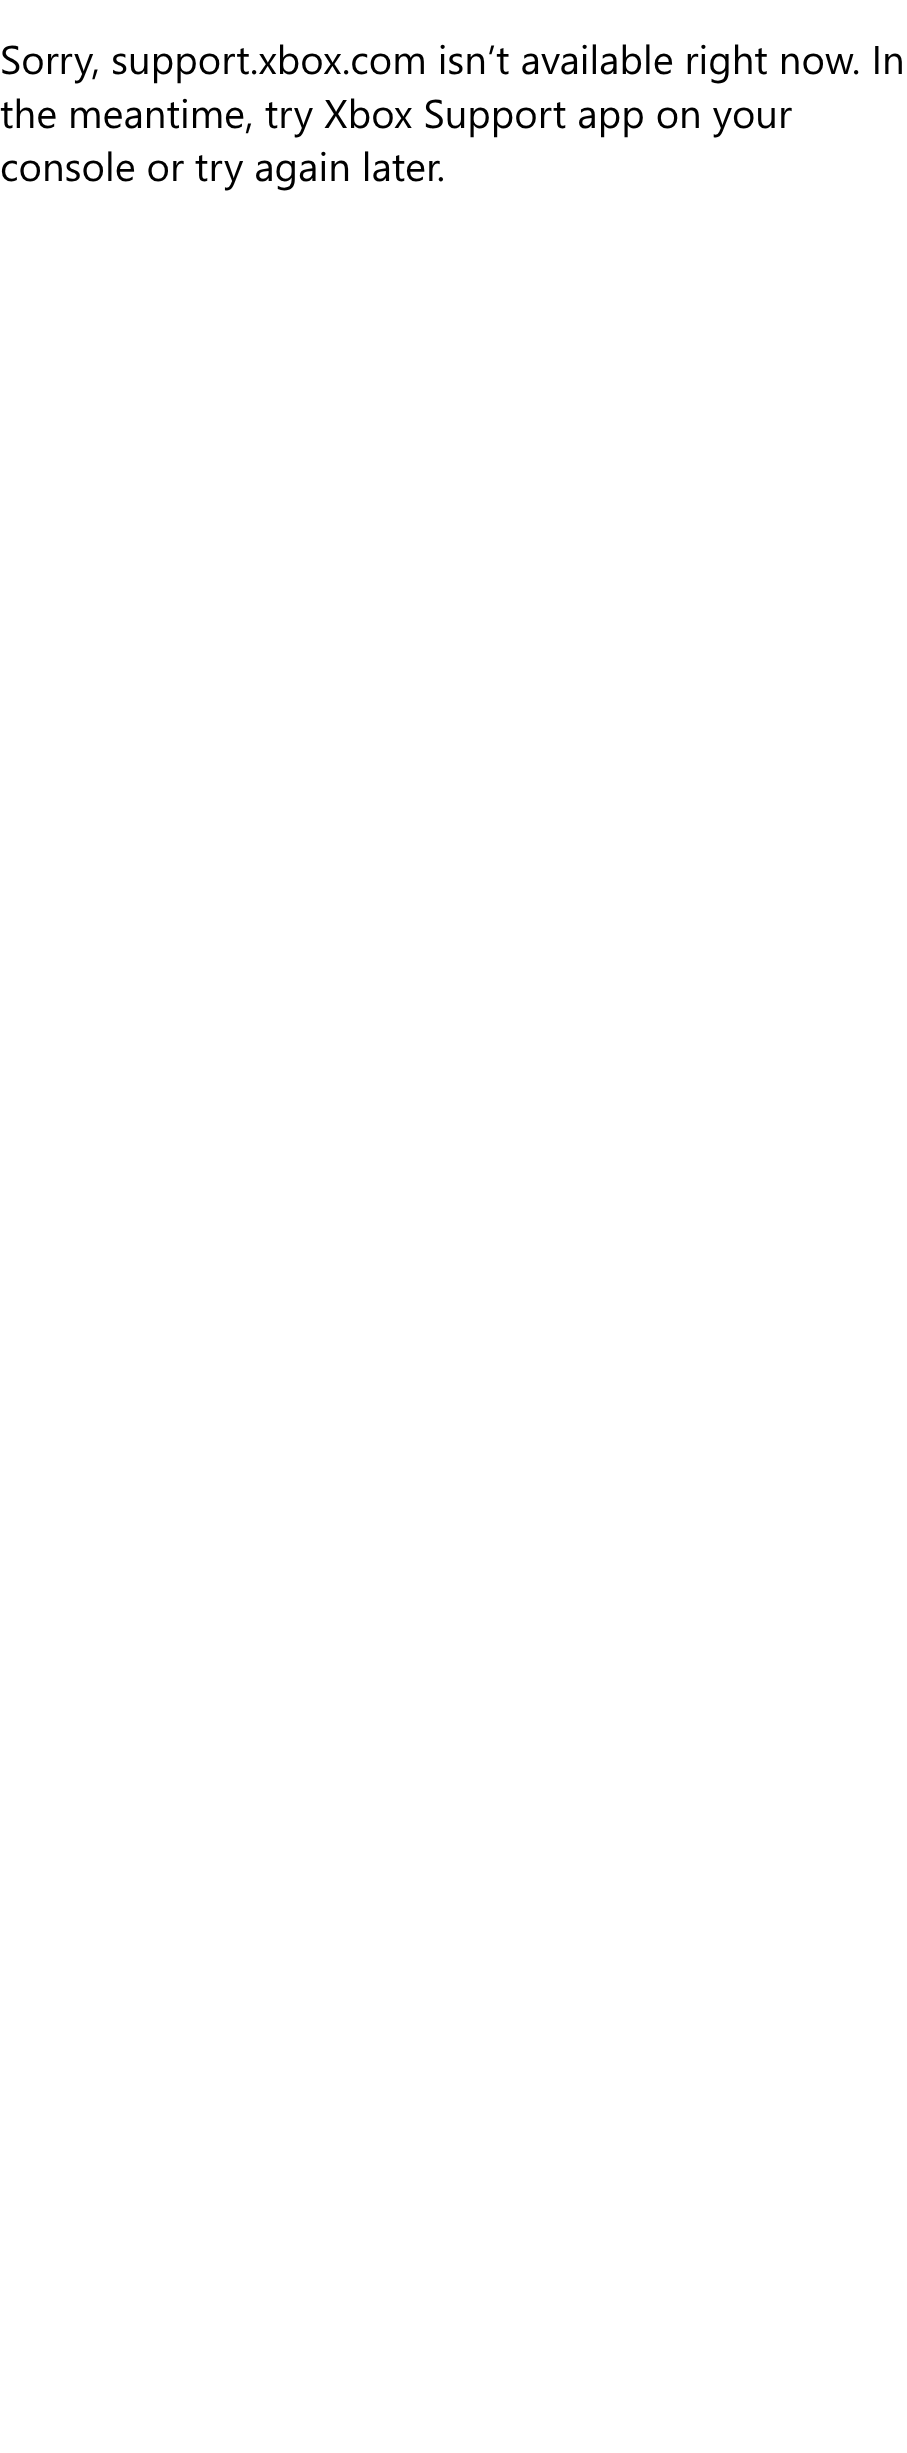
<!DOCTYPE html>
<meta charset="utf-8">
<style>body { margin: 0 } canvas { display: block }</style>
<canvas id="canvas" width="907" height="2453"></canvas>
<script type="module">
  const canvas = document.getElementById("canvas");
  const ctx = canvas.getContext("2d");
  ctx.miterLimit = 4;
  ctx.fontKerning = "normal";

  ctx.fillStyle = "#ffffff";
  ctx.fillRect(0, 0, 907, 2453);
  ctx.font = "40px Segoe UI";
  ctx.fillStyle = "#000000";
  ctx.fillText("Sorry, support.xbox.com isn’t available right now. In", 0, 74);
  ctx.fillText("the meantime, try Xbox Support app on your", 0, 128);
  ctx.fillText("console or try again later.", 0, 181);
</script>
